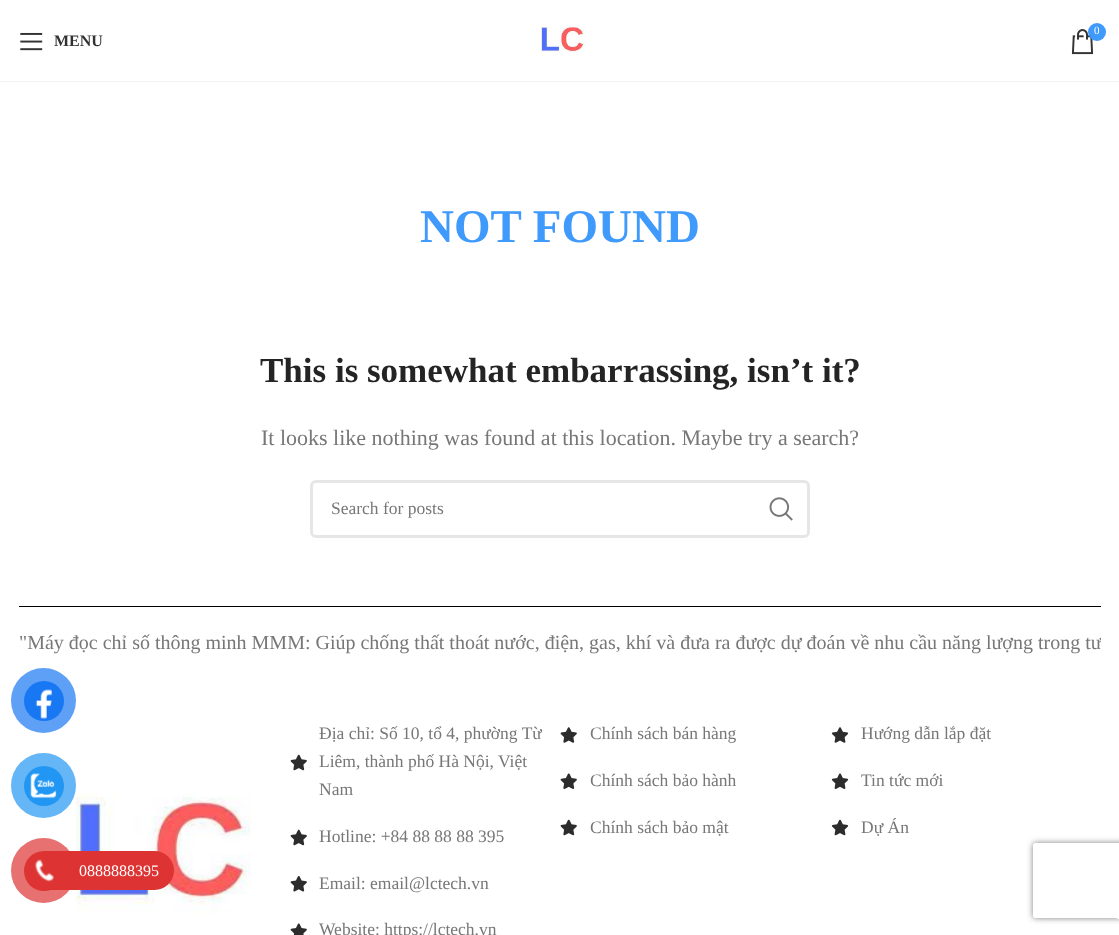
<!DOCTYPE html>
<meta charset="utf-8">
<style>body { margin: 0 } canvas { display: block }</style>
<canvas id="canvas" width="1119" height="935"></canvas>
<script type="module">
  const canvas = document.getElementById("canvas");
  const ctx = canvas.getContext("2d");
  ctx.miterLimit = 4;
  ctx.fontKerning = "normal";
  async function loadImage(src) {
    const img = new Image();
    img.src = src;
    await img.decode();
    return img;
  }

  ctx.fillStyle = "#ffffff";
  ctx.fillRect(0, 0, 1119, 935);
  ctx.fillStyle = "#f2f2f2";
  ctx.fillRect(0, 81, 1119, 1);
  ctx.drawImage(await loadImage("img1.png"), 541, 25, 44, 30);
  ctx.drawImage(await loadImage("img2.png"), 1071, 29, 23, 26);
  ctx.fillStyle = "rgba(55, 150, 252, 0.96)";
  ctx.beginPath();
  ctx.arc(1097, 32, 9, 0, Math.PI * 2);
  ctx.fill();
  ctx.font = "11px Liberation Serif";
  ctx.fillStyle = "#ffffff";
  ctx.fillText("0", 1094, 34);
  ctx.drawImage(await loadImage("img3.png"), 20, 32, 23, 19);
  ctx.font = "bold 16px Liberation Serif";
  ctx.fillStyle = "#333333";
  ctx.fillText("MENU", 54, 46);
  ctx.font = "bold 47px Liberation Serif";
  ctx.fillStyle = "#3f9afc";
  ctx.fillText("NOT FOUND", 420, 242);
  ctx.font = "bold 35px Liberation Serif";
  ctx.fillStyle = "#242424";
  ctx.fillText("This is somewhat embarrassing, isn’t it?", 260, 382);
  ctx.font = "22px Liberation Serif";
  ctx.fillStyle = "#777777";
  ctx.fillText("It looks like nothing was found at this location. Maybe try a search?", 261, 445);
  ctx.beginPath();
  ctx.roundRect(311.5, 481.5, 497, 55, 4.5);
  ctx.strokeStyle = "#e6e6e6";
  ctx.lineWidth = 3;
  ctx.stroke();
  ctx.font = "17.5px Liberation Serif";
  ctx.fillText("Search for posts", 331, 514);
  ctx.drawImage(await loadImage("img4.png"), 769, 497, 24, 24);
  ctx.fillStyle = "#000000";
  ctx.fillRect(19, 606, 1082, 1);
  ctx.save();
  ctx.beginPath();
  ctx.rect(19, 626, 1082, 32);
  ctx.clip();
  ctx.font = "20px Liberation Serif";
  ctx.fillStyle = "#777777";
  ctx.fillText("\"Máy đọc chỉ số thông minh MMM: Giúp chống thất thoát nước, điện, gas, khí và đưa ra được dự đoán về nhu cầu năng lượng trong tư", 19, 649);
  ctx.restore();
  ctx.drawImage(await loadImage("img5.png"), 290, 754, 17, 17);
  ctx.fillStyle = "#777777";
  ctx.fillText("Địa chỉ: Số 10, tổ 4, phường Từ", 319, 739);
  ctx.fillText("Liêm, thành phố Hà Nội, Việt", 319, 767);
  ctx.fillText("Nam", 319, 795);
  ctx.drawImage(await loadImage("img5.png"), 290, 829, 17, 17);
  ctx.fillText("Hotline: +84 88 88 88 395", 319, 842);
  ctx.drawImage(await loadImage("img6.png"), 290, 876, 17, 16);
  ctx.fillText("Email: email@lctech.vn", 319, 889);
  ctx.drawImage(await loadImage("img7.png"), 290, 923, 17, 12);
  ctx.fillText("Website: https://lctech.vn", 319, 935);
  ctx.drawImage(await loadImage("img8.png"), 560, 727, 17, 16);
  ctx.fillText("Chính sách bán hàng", 590, 739);
  ctx.drawImage(await loadImage("img9.png"), 560, 773, 17, 16);
  ctx.fillText("Chính sách bảo hành", 590, 786);
  ctx.drawImage(await loadImage("img5.png"), 560, 819, 17, 17);
  ctx.fillText("Chính sách bảo mật", 590, 833);
  ctx.drawImage(await loadImage("img10.png"), 831, 727, 18, 16);
  ctx.fillText("Hướng dẫn lắp đặt", 861, 739);
  ctx.drawImage(await loadImage("img11.png"), 831, 773, 18, 16);
  ctx.fillText("Tin tức mới", 861, 786);
  ctx.drawImage(await loadImage("img12.png"), 831, 819, 18, 17);
  ctx.fillText("Dự Án", 861, 833);
  ctx.drawImage(await loadImage("img13.png"), 75, 793, 176, 120);
  ctx.fillStyle = "#5da0f6";
  ctx.beginPath();
  ctx.arc(43.5, 700.5, 32.5, 0, Math.PI * 2);
  ctx.fill();
  ctx.fillStyle = "#1877f2";
  ctx.beginPath();
  ctx.arc(44, 701, 20, 0, Math.PI * 2);
  ctx.fill();
  ctx.drawImage(await loadImage("img14.png"), 35, 689, 17, 30);
  ctx.fillStyle = "#64b6f7";
  ctx.beginPath();
  ctx.arc(43.5, 785.5, 32.5, 0, Math.PI * 2);
  ctx.fill();
  ctx.fillStyle = "#2196f3";
  ctx.beginPath();
  ctx.arc(44, 786, 20, 0, Math.PI * 2);
  ctx.fill();
  ctx.drawImage(await loadImage("img15.png"), 30, 773, 27, 25);
  ctx.fillStyle = "#dd3333";
  ctx.beginPath();
  ctx.roundRect(29, 851, 145, 39, 19.5);
  ctx.fill();
  ctx.fillStyle = "rgba(221, 51, 51, 0.7)";
  ctx.beginPath();
  ctx.arc(43.5, 870.5, 32.5, 0, Math.PI * 2);
  ctx.fill();
  ctx.fillStyle = "#dd3333";
  ctx.beginPath();
  ctx.arc(44, 871, 20, 0, Math.PI * 2);
  ctx.fill();
  ctx.drawImage(await loadImage("img16.png"), 34, 859, 20, 23);
  ctx.font = "16px Liberation Serif";
  ctx.fillStyle = "#ffffff";
  ctx.fillText("0888888395", 79, 876);
  ctx.save();
  ctx.beginPath();
  ctx.moveTo(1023, 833);
  ctx.lineTo(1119, 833);
  ctx.lineTo(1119, 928);
  ctx.lineTo(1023, 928);
  ctx.closePath();
  ctx.moveTo(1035.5, 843);
  ctx.lineTo(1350.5, 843);
  ctx.bezierCurveTo(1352, 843, 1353, 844, 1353, 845.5);
  ctx.lineTo(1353, 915.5);
  ctx.bezierCurveTo(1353, 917, 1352, 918, 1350.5, 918);
  ctx.lineTo(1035.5, 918);
  ctx.bezierCurveTo(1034, 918, 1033, 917, 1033, 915.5);
  ctx.lineTo(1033, 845.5);
  ctx.bezierCurveTo(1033, 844, 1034, 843, 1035.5, 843);
  ctx.closePath();
  ctx.clip("evenodd");
  ctx.fillStyle = "#808080";
  ctx.filter = "blur(3px)";
  ctx.beginPath();
  ctx.roundRect(1033, 843, 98, 75, 2.5);
  ctx.fill();
  ctx.filter = "none";
  ctx.restore();
  ctx.beginPath();
  ctx.roundRect(1105, 870, 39, 50, 25);
  ctx.fill();
</script>
